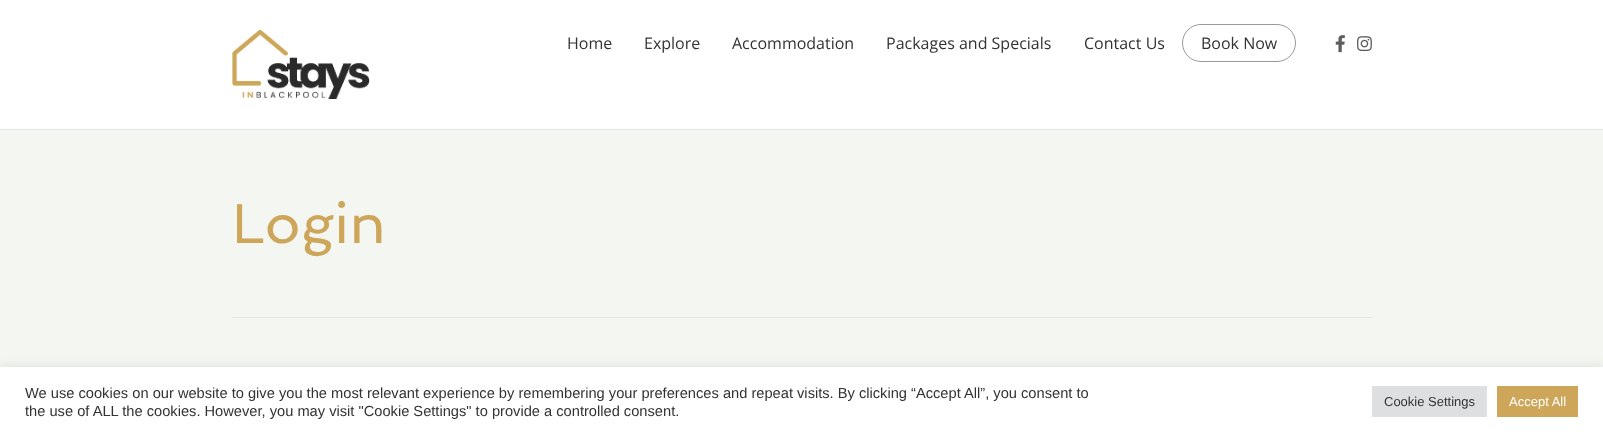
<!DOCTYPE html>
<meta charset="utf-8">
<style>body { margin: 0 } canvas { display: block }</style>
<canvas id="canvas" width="1603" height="436"></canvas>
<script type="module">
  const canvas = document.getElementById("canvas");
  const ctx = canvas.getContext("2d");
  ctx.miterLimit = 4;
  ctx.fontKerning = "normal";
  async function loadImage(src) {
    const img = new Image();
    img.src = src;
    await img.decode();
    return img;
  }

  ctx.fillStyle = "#f4f6f2";
  ctx.fillRect(0, 0, 1603, 436);
  ctx.fillStyle = "#ffffff";
  ctx.fillRect(0, 0, 1603, 129);
  ctx.fillStyle = "#e7e7e7";
  ctx.fillRect(0, 129, 1603, 1);
  ctx.drawImage(await loadImage("img1.png"), 232, 30, 138, 69);
  ctx.font = "16px Open Sans";
  ctx.fillStyle = "#333333";
  ctx.fillText("Home", 567, 49);
  ctx.fillText("Explore", 644, 49);
  ctx.fillText("Accommodation", 732, 49);
  ctx.fillText("Packages and Specials", 886, 49);
  ctx.fillText("Contact Us", 1084, 49);
  ctx.beginPath();
  ctx.roundRect(1182.5, 24.5, 113, 37, 18.5);
  ctx.strokeStyle = "#999999";
  ctx.stroke();
  ctx.fillText("Book Now", 1201, 49);
  ctx.drawImage(await loadImage("img2.png"), 1335, 35, 10, 18);
  ctx.drawImage(await loadImage("img3.png"), 1357, 36, 15, 16);
  ctx.fillStyle = "#e6e6e6";
  ctx.fillRect(232, 317, 1140, 1);
  ctx.font = "56px Spinnaker";
  ctx.fillStyle = "#cda659";
  ctx.fillText("Login", 232, 243);
  ctx.fillStyle = "rgba(172, 171, 171, 0.3)";
  ctx.filter = "blur(5px)";
  ctx.beginPath();
  ctx.rect(0, 366, 1603, 69);
  ctx.fill();
  ctx.filter = "none";
  ctx.fillStyle = "#ffffff";
  ctx.fillRect(0, 367, 1603, 69);
  ctx.font = "14.67px Liberation Sans";
  ctx.fillStyle = "#333333";
  ctx.fillText("We use cookies on our website to give you the most relevant experience by remembering your preferences and repeat visits. By clicking “Accept All”, you consent to", 25, 398);
  ctx.fillText("the use of ALL the cookies. However, you may visit \"Cookie Settings\" to provide a controlled consent.", 25, 416);
  ctx.fillStyle = "#dedfe0";
  ctx.fillRect(1372, 386, 115, 31);
  ctx.font = "13px Liberation Sans";
  ctx.fillStyle = "#333333";
  ctx.fillText("Cookie Settings", 1384, 406);
  ctx.fillStyle = "#cda659";
  ctx.fillRect(1497, 386, 81, 31);
  ctx.fillStyle = "#ffffff";
  ctx.fillText("Accept All", 1509, 406);
</script>
